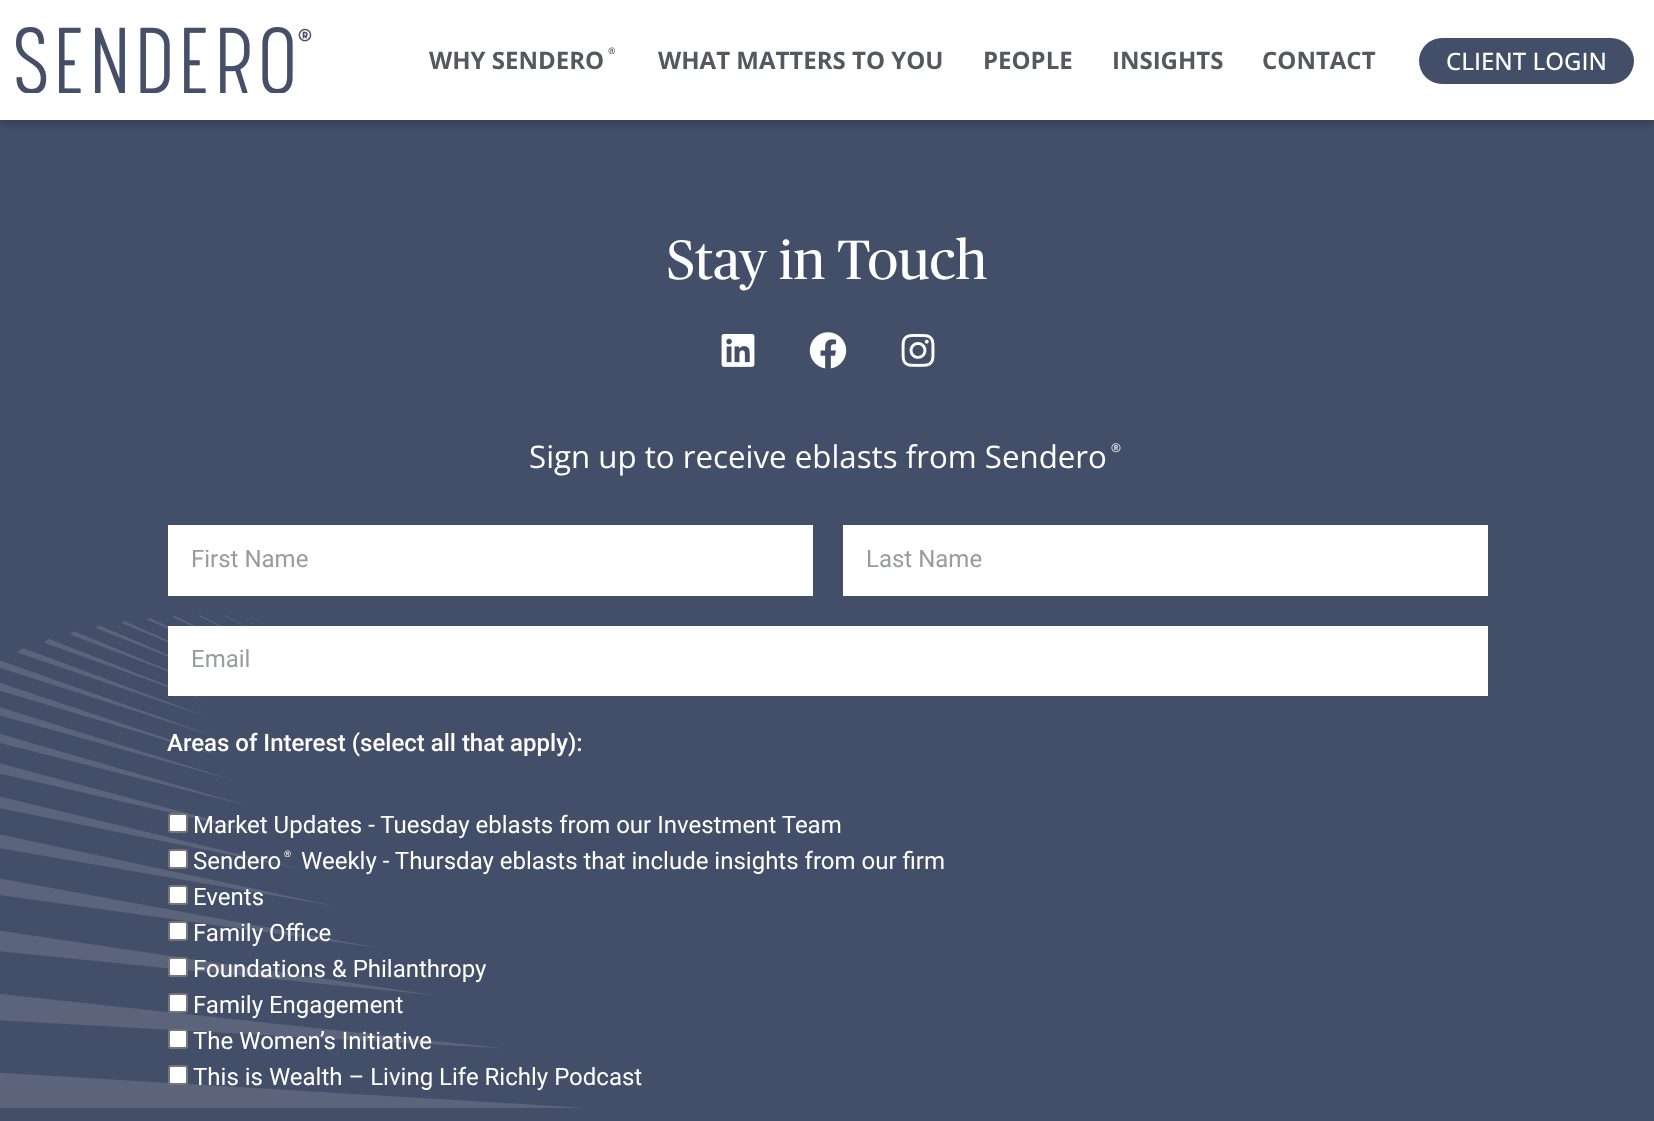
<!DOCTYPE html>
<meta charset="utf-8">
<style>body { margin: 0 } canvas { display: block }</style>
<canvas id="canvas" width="1654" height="1121"></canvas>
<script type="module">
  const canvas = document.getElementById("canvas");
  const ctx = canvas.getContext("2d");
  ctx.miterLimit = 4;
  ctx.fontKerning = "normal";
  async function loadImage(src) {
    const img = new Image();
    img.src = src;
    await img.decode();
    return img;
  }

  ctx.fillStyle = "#ffffff";
  ctx.fillRect(0, 0, 1654, 1121);
  ctx.fillStyle = "#434f69";
  ctx.fillRect(0, 120, 1654, 1001);
  ctx.save();
  ctx.beginPath();
  ctx.rect(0, 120, 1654, 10);
  ctx.clip();
  ctx.fillStyle = "rgba(0, 0, 0, 0.16)";
  ctx.filter = "blur(4.5px)";
  ctx.beginPath();
  ctx.rect(0, 5, 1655, 120);
  ctx.fill();
  ctx.filter = "none";
  ctx.restore();
  ctx.drawImage(await loadImage("img1.png"), 16, 27, 296, 66);
  ctx.font = "bold 24px Open Sans";
  ctx.fillStyle = "#54595f";
  ctx.fillText("WHY SENDERO", 429, 69);
  ctx.font = "bold 9px Open Sans";
  ctx.fillText("®", 608, 54);
  ctx.font = "bold 24px Open Sans";
  ctx.fillText("WHAT MATTERS TO YOU", 658, 69);
  ctx.fillText("PEOPLE", 983, 69);
  ctx.fillText("INSIGHTS", 1112, 69);
  ctx.fillText("CONTACT", 1262, 69);
  ctx.fillStyle = "#434f69";
  ctx.beginPath();
  ctx.roundRect(1419, 38, 215, 46, 23);
  ctx.fill();
  ctx.font = "500 24px Open Sans";
  ctx.fillStyle = "#ffffff";
  ctx.fillText("CLIENT LOGIN", 1446, 70);
  ctx.drawImage(await loadImage("img2.png"), 0, 615, 584, 493);
  ctx.font = "55.25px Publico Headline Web";
  ctx.fillText("Stay in Touch", 667, 279);
  ctx.drawImage(await loadImage("img3.png"), 721, 334, 34, 33);
  ctx.drawImage(await loadImage("img4.png"), 809, 332, 38, 37);
  ctx.drawImage(await loadImage("img5.png"), 901, 333, 34, 34);
  ctx.font = "31.25px Open Sans";
  ctx.fillText("Sign up to receive eblasts from Sendero", 529, 468);
  ctx.font = "12px Open Sans";
  ctx.fillText("®", 1111, 452);
  ctx.fillRect(168, 525, 645, 71);
  ctx.font = "24px Roboto";
  ctx.fillStyle = "#989b9f";
  ctx.fillText("First Name", 191, 567);
  ctx.fillStyle = "#ffffff";
  ctx.fillRect(843, 525, 645, 71);
  ctx.fillStyle = "#989b9f";
  ctx.fillText("Last Name", 866, 567);
  ctx.fillStyle = "#ffffff";
  ctx.fillRect(168, 626, 1320, 70);
  ctx.fillStyle = "#989b9f";
  ctx.fillText("Email", 191, 667);
  ctx.font = "500 24px Roboto";
  ctx.fillStyle = "#ffffff";
  ctx.fillText("Areas of Interest (select all that apply):", 167, 751);
  ctx.beginPath();
  ctx.roundRect(169, 814, 18, 18, 2);
  ctx.fill();
  ctx.strokeStyle = "#767676";
  ctx.lineWidth = 2;
  ctx.stroke();
  ctx.font = "24px Roboto";
  ctx.fillText("Market Updates - Tuesday eblasts from our Investment Team", 193, 833);
  ctx.beginPath();
  ctx.roundRect(169, 850, 18, 18, 2);
  ctx.fill();
  ctx.stroke();
  ctx.fillText("Sendero", 193, 869);
  ctx.font = "9px Roboto";
  ctx.fillText("®", 284, 857);
  ctx.font = "24px Roboto";
  ctx.fillText("Weekly - Thursday eblasts that include insights from our firm", 301, 869);
  ctx.beginPath();
  ctx.roundRect(169, 886, 18, 18, 2);
  ctx.fill();
  ctx.stroke();
  ctx.fillText("Events", 193, 905);
  ctx.beginPath();
  ctx.roundRect(169, 922, 18, 18, 2);
  ctx.fill();
  ctx.stroke();
  ctx.fillText("Family Office", 193, 941);
  ctx.beginPath();
  ctx.roundRect(169, 958, 18, 18, 2);
  ctx.fill();
  ctx.stroke();
  ctx.fillText("Foundations & Philanthropy", 193, 977);
  ctx.beginPath();
  ctx.roundRect(169, 994, 18, 18, 2);
  ctx.fill();
  ctx.stroke();
  ctx.fillText("Family Engagement", 193, 1013);
  ctx.beginPath();
  ctx.roundRect(169, 1030, 18, 18, 2);
  ctx.fill();
  ctx.stroke();
  ctx.fillText("The Women’s Initiative", 193, 1049);
  ctx.beginPath();
  ctx.roundRect(169, 1066, 18, 18, 2);
  ctx.fill();
  ctx.stroke();
  ctx.fillText("This is Wealth – Living Life Richly Podcast", 193, 1085);
</script>
